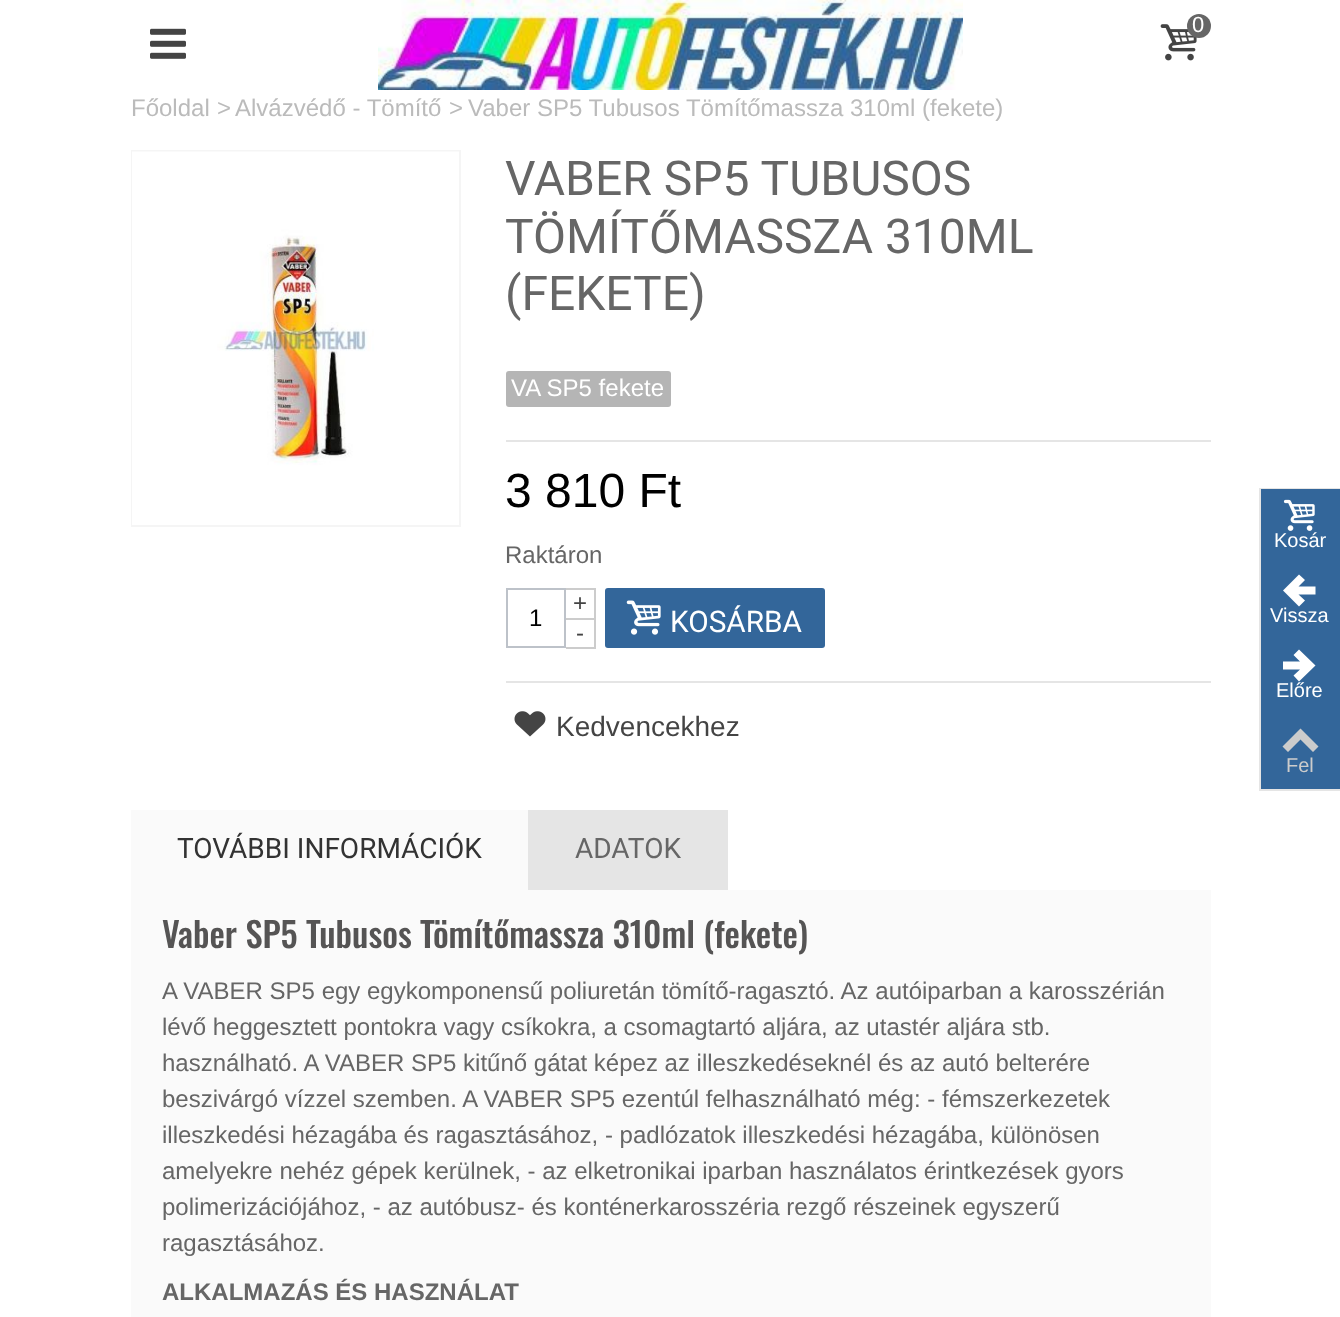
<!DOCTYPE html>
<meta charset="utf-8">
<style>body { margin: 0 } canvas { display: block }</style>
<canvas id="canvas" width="1340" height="1317"></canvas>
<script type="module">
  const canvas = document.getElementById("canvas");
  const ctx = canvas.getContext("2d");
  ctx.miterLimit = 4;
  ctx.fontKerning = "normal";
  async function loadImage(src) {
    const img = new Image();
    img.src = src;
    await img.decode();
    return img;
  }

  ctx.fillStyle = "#ffffff";
  ctx.fillRect(0, 0, 1340, 1317);
  ctx.drawImage(await loadImage("img1.png"), 378, 0, 585, 90);
  ctx.drawImage(await loadImage("img2.png"), 1160, 24, 37, 37);
  ctx.fillStyle = "#666666";
  ctx.beginPath();
  ctx.arc(1199, 26, 12, 0, Math.PI * 2);
  ctx.fill();
  ctx.font = "22px Liberation Sans";
  ctx.fillStyle = "#ffffff";
  ctx.fillText("0", 1192, 32);
  ctx.drawImage(await loadImage("img3.png"), 150, 28, 36, 31);
  ctx.font = "24px Liberation Sans";
  ctx.fillStyle = "#bbbbbb";
  ctx.fillText("Főoldal", 131, 116);
  ctx.fillText(">", 217, 116);
  ctx.fillText("Alvázvédő - Tömítő", 235, 116);
  ctx.fillText(">", 449, 116);
  ctx.fillText("Vaber SP5 Tubusos Tömítőmassza 310ml (fekete)", 468, 116);
  ctx.strokeStyle = "#f5f5f5";
  ctx.lineWidth = 2;
  ctx.strokeRect(132, 151, 328, 375);
  ctx.drawImage(await loadImage("img4.png"), 132, 151, 327, 374);
  ctx.font = "48px Roboto";
  ctx.fillStyle = "#666666";
  ctx.fillText("VABER SP5 TUBUSOS", 505, 195);
  ctx.fillText("TÖMÍTŐMASSZA 310ML", 505, 253);
  ctx.fillText("(FEKETE)", 505, 310);
  ctx.fillStyle = "#b5b5b5";
  ctx.beginPath();
  ctx.roundRect(506, 371, 165, 36, 3);
  ctx.fill();
  ctx.font = "24px Liberation Sans";
  ctx.fillStyle = "#ffffff";
  ctx.fillText("VA SP5 fekete", 511, 396);
  ctx.fillStyle = "#e5e5e5";
  ctx.fillRect(506, 440, 705, 2);
  ctx.font = "48px Liberation Sans";
  ctx.fillStyle = "#000000";
  ctx.fillText("3 810 Ft", 505, 507);
  ctx.font = "24px Liberation Sans";
  ctx.fillStyle = "#666666";
  ctx.fillText("Raktáron", 505, 563);
  ctx.fillStyle = "#e5e5e5";
  ctx.fillRect(506, 681, 705, 2);
  ctx.fillStyle = "#cccccc";
  ctx.fillRect(566, 588, 30, 2);
  ctx.fillRect(594, 588, 2, 30);
  ctx.fillStyle = "#444444";
  ctx.fillText("+", 573, 611);
  ctx.strokeStyle = "#bdc2c9";
  ctx.strokeRect(507, 589, 58, 58);
  ctx.fillStyle = "#000000";
  ctx.fillText("1", 529, 626);
  ctx.fillStyle = "#cccccc";
  ctx.fillRect(566, 618, 30, 2);
  ctx.fillRect(594, 618, 2, 30);
  ctx.fillRect(566, 647, 30, 2);
  ctx.fillStyle = "#444444";
  ctx.fillText("-", 576, 641);
  ctx.fillStyle = "#33669a";
  ctx.beginPath();
  ctx.roundRect(605, 588, 220, 60, 3);
  ctx.fill();
  ctx.drawImage(await loadImage("img5.png"), 626, 600, 35, 35);
  ctx.font = "29.75px Roboto";
  ctx.fillStyle = "#ffffff";
  ctx.fillText("KOSÁRBA", 670, 632);
  ctx.drawImage(await loadImage("img6.png"), 514, 711, 32, 26);
  ctx.font = "28px Liberation Sans";
  ctx.fillStyle = "#444444";
  ctx.fillText("Kedvencekhez", 556, 736);
  ctx.fillStyle = "#fafafa";
  ctx.fillRect(131, 810, 397, 80);
  ctx.font = "28px Roboto";
  ctx.fillStyle = "#333333";
  ctx.fillText("TOVÁBBI INFORMÁCIÓK", 177, 858);
  ctx.fillStyle = "#e5e5e5";
  ctx.fillRect(528, 810, 200, 80);
  ctx.fillStyle = "#666666";
  ctx.fillText("ADATOK", 575, 858);
  ctx.fillStyle = "#fafafa";
  ctx.fillRect(131, 890, 1080, 427);
  ctx.font = "500 34.5px Oswald";
  ctx.fillStyle = "#555454";
  ctx.fillText("Vaber SP5 Tubusos Tömítőmassza 310ml (fekete)", 162, 948);
  ctx.font = "24px Liberation Sans";
  ctx.fillStyle = "#666666";
  ctx.fillText("A VABER SP5 egy egykomponensű poliuretán tömítő-ragasztó. Az autóiparban a karosszérián", 162, 999);
  ctx.fillText("lévő heggesztett pontokra vagy csíkokra, a csomagtartó aljára, az utastér aljára stb.", 162, 1035);
  ctx.fillText("használható. A VABER SP5 kitűnő gátat képez az illeszkedéseknél és az autó belterére", 162, 1071);
  ctx.fillText("beszivárgó vízzel szemben. A VABER SP5 ezentúl felhasználható még: - fémszerkezetek", 162, 1107);
  ctx.fillText("illeszkedési hézagába és ragasztásához, - padlózatok illeszkedési hézagába, különösen", 162, 1143);
  ctx.fillText("amelyekre nehéz gépek kerülnek, - az elketronikai iparban használatos érintkezések gyors", 162, 1179);
  ctx.fillText("polimerizációjához, - az autóbusz- és konténerkarosszéria rezgő részeinek egyszerű", 162, 1215);
  ctx.fillText("ragasztásához.", 162, 1251);
  ctx.font = "bold 24px Liberation Sans";
  ctx.fillText("ALKALMAZÁS ÉS HASZNÁLAT", 162, 1300);
  ctx.fillStyle = "#33669a";
  ctx.fillRect(1261, 489, 79, 300);
  ctx.fillStyle = "#e5e5e5";
  ctx.fillRect(1259, 488, 81, 1);
  ctx.fillRect(1259, 789, 81, 2);
  ctx.fillRect(1259, 489, 2, 300);
  ctx.drawImage(await loadImage("img7.png"), 1283, 499, 32, 32);
  ctx.font = "20px Liberation Sans";
  ctx.fillStyle = "#ffffff";
  ctx.fillText("Kosár", 1274, 547);
  ctx.beginPath();
  ctx.moveTo(1299, 606.5);
  ctx.lineTo(1283, 590.5);
  ctx.lineTo(1299, 574.5);
  ctx.lineTo(1305, 580);
  ctx.lineTo(1298.5, 586.5);
  ctx.lineTo(1315.5, 586.5);
  ctx.lineTo(1315.5, 594.5);
  ctx.lineTo(1298.5, 594.5);
  ctx.lineTo(1305, 600.5);
  ctx.closePath();
  ctx.fill();
  ctx.fillText("Vissza", 1270, 622);
  ctx.beginPath();
  ctx.moveTo(1299, 649.5);
  ctx.lineTo(1315.5, 665.5);
  ctx.lineTo(1299, 681.5);
  ctx.lineTo(1293.5, 675.5);
  ctx.lineTo(1300, 669.5);
  ctx.lineTo(1283, 669.5);
  ctx.lineTo(1283, 661.5);
  ctx.lineTo(1300, 661.5);
  ctx.lineTo(1293.5, 655);
  ctx.closePath();
  ctx.fill();
  ctx.fillText("Előre", 1276, 697);
  ctx.fillStyle = "#cccccc";
  ctx.beginPath();
  ctx.moveTo(1282.5, 746.5);
  ctx.lineTo(1300.5, 728.5);
  ctx.lineTo(1318.5, 746.5);
  ctx.lineTo(1313, 752);
  ctx.lineTo(1300.5, 739.5);
  ctx.lineTo(1288, 752);
  ctx.closePath();
  ctx.fill();
  ctx.fillText("Fel", 1286, 772);
</script>
